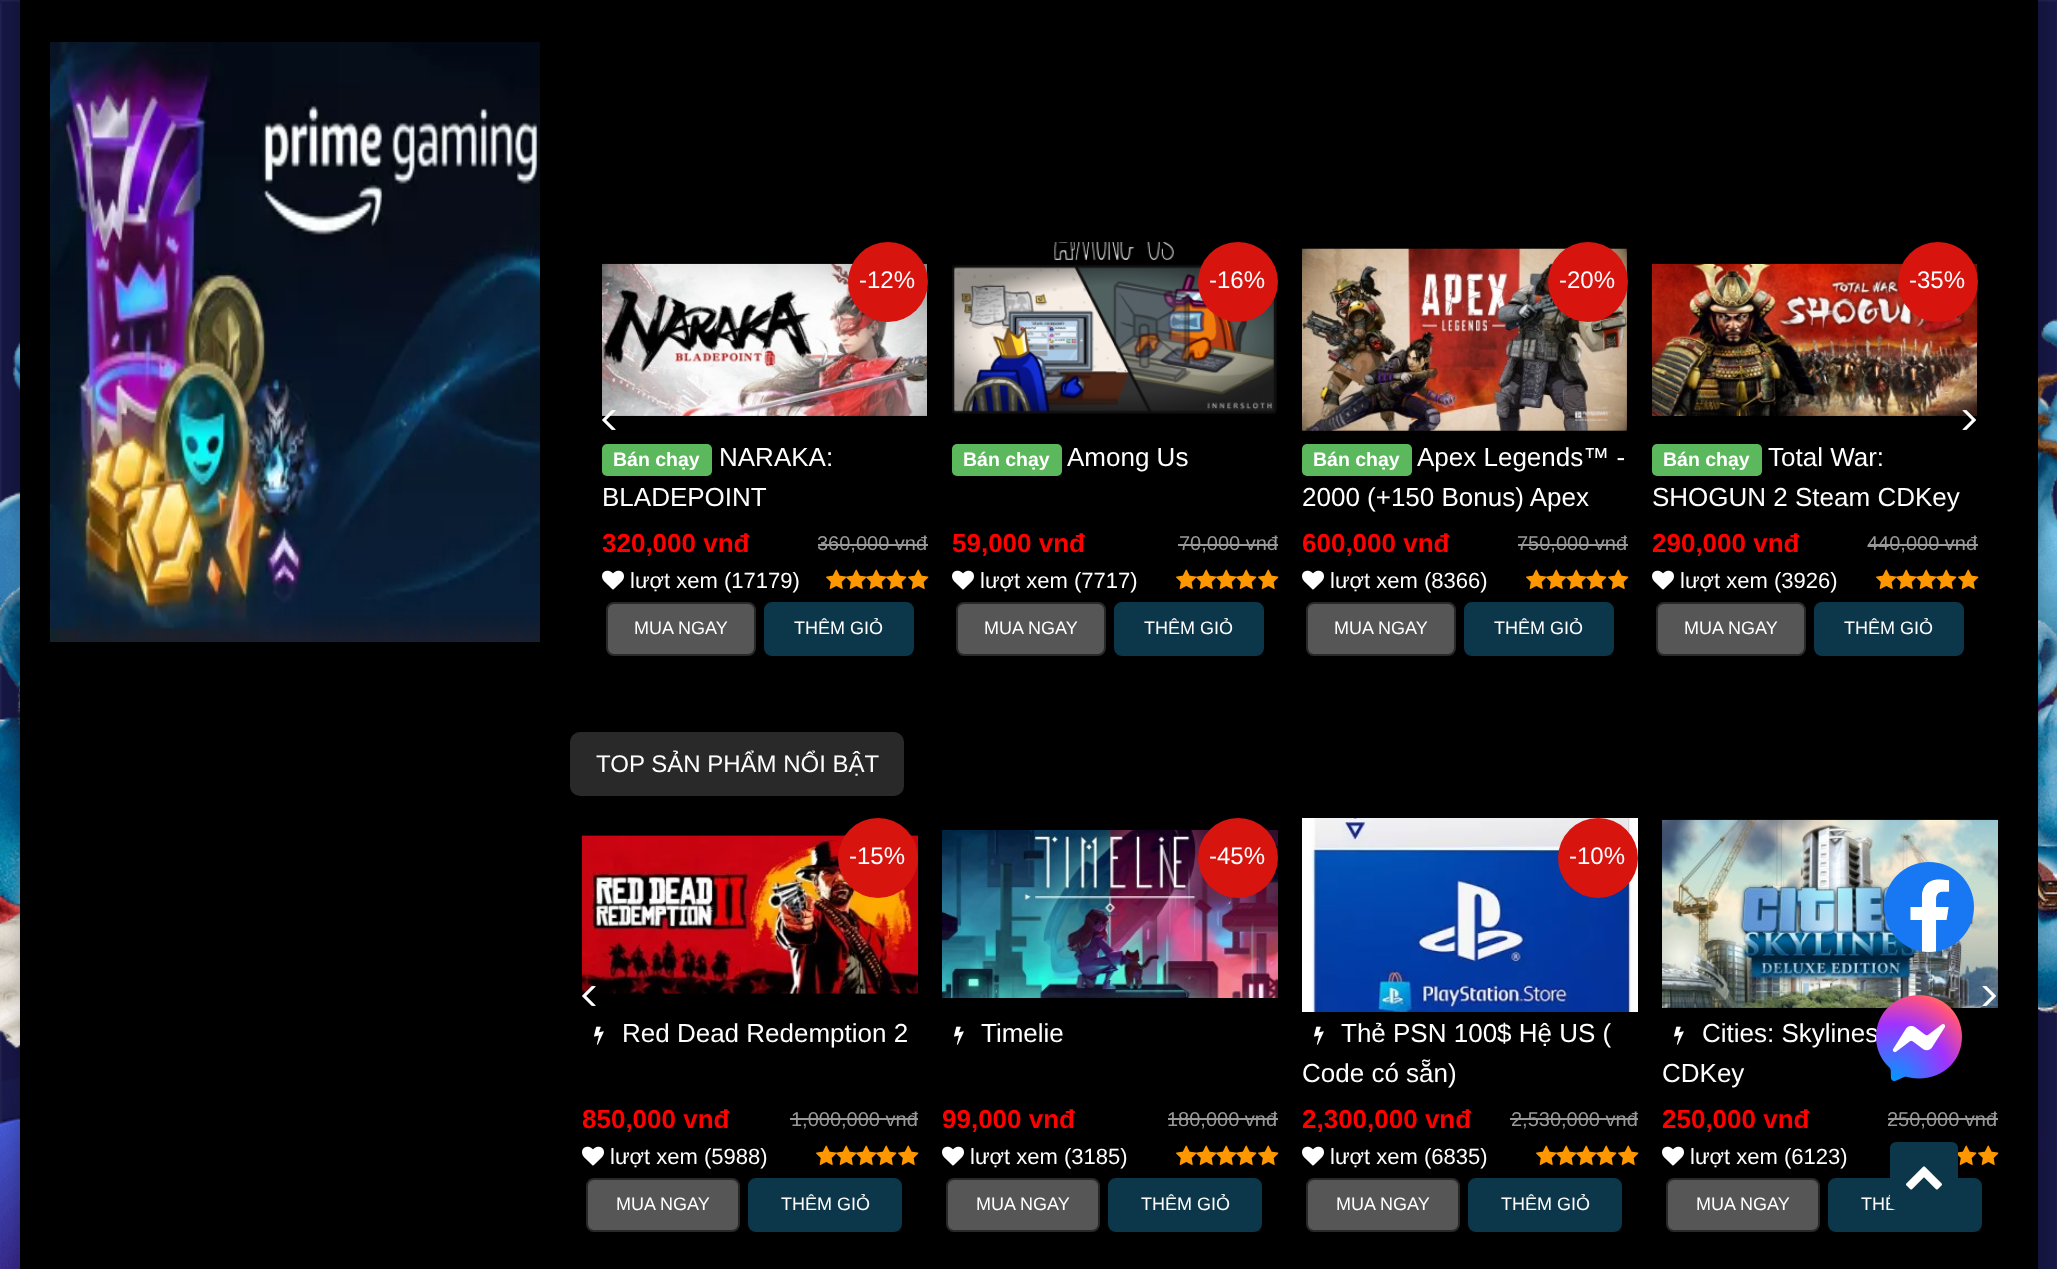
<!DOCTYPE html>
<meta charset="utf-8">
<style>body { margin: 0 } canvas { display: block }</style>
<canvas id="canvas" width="2057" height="1269"></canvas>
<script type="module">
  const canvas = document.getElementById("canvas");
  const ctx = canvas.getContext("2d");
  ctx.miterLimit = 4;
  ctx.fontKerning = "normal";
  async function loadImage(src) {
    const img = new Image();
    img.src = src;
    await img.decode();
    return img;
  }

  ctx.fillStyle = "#ffffff";
  ctx.fillRect(0, 0, 2057, 1269);
  ctx.drawImage(await loadImage("img1.png"), 0, 0, 2057, 1269);
  ctx.fillStyle = "rgba(0, 0, 0, 0.2)";
  ctx.filter = "blur(10px)";
  ctx.beginPath();
  ctx.rect(20, -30, 2018, 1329);
  ctx.fill();
  ctx.filter = "none";
  ctx.fillStyle = "#000000";
  ctx.fillRect(20, 0, 2018, 1269);
  ctx.drawImage(await loadImage("img2.png"), 50, 42, 490, 600);
  ctx.drawImage(await loadImage("img3.png"), 602, 263, 325, 153);
  ctx.fillStyle = "#d8140f";
  ctx.beginPath();
  ctx.arc(888, 282, 40, 0, Math.PI * 2);
  ctx.fill();
  ctx.font = "24px Liberation Sans";
  ctx.fillStyle = "#ffffff";
  ctx.fillText("-12%", 859, 288);
  ctx.fillStyle = "#5cb85c";
  ctx.beginPath();
  ctx.roundRect(602, 444, 110, 32, 5);
  ctx.fill();
  ctx.font = "bold 19.5px Liberation Sans";
  ctx.fillStyle = "#ffffff";
  ctx.fillText("Bán chạy", 613, 466);
  ctx.font = "26px Liberation Sans";
  ctx.fillText("NARAKA:", 719, 466);
  ctx.fillText("BLADEPOINT", 602, 506);
  ctx.font = "bold 26px Liberation Sans";
  ctx.fillStyle = "#ff0000";
  ctx.fillText("320,000 vnđ", 602, 552);
  ctx.font = "20px Liberation Sans";
  ctx.fillStyle = "#999999";
  ctx.fillText("360,000 vnđ", 817, 550);
  ctx.fillRect(818, 544, 110, 2);
  ctx.drawImage(await loadImage("img4.png"), 602, 570, 22, 20);
  ctx.font = "22px Liberation Sans";
  ctx.fillStyle = "#ffffff";
  ctx.fillText("lượt xem (17179)", 630, 588);
  ctx.drawImage(await loadImage("img5.png"), 826, 569, 21, 20);
  ctx.drawImage(await loadImage("img6.png"), 846, 569, 21, 20);
  ctx.drawImage(await loadImage("img6.png"), 866, 569, 21, 20);
  ctx.drawImage(await loadImage("img6.png"), 886, 569, 21, 20);
  ctx.drawImage(await loadImage("img5.png"), 908, 569, 21, 20);
  ctx.fillStyle = "#565656";
  ctx.beginPath();
  ctx.roundRect(607, 603, 148, 52, 7);
  ctx.fill();
  ctx.strokeStyle = "#292929";
  ctx.lineWidth = 2;
  ctx.stroke();
  ctx.font = "18px Liberation Sans";
  ctx.fillStyle = "#ffffff";
  ctx.fillText("MUA NGAY", 634, 634);
  ctx.fillStyle = "#0c374a";
  ctx.beginPath();
  ctx.roundRect(765, 603, 148, 52, 7);
  ctx.fill();
  ctx.strokeStyle = "#0c374a";
  ctx.stroke();
  ctx.fillStyle = "#ffffff";
  ctx.fillText("THÊM GIỎ", 794, 634);
  ctx.drawImage(await loadImage("img7.png"), 952, 242, 325, 172);
  ctx.fillStyle = "#d8140f";
  ctx.beginPath();
  ctx.arc(1238, 282, 40, 0, Math.PI * 2);
  ctx.fill();
  ctx.font = "24px Liberation Sans";
  ctx.fillStyle = "#ffffff";
  ctx.fillText("-16%", 1209, 288);
  ctx.fillStyle = "#5cb85c";
  ctx.beginPath();
  ctx.roundRect(952, 444, 110, 32, 5);
  ctx.fill();
  ctx.font = "bold 19.5px Liberation Sans";
  ctx.fillStyle = "#ffffff";
  ctx.fillText("Bán chạy", 963, 466);
  ctx.font = "26px Liberation Sans";
  ctx.fillText("Among Us", 1067, 466);
  ctx.font = "bold 26px Liberation Sans";
  ctx.fillStyle = "#ff0000";
  ctx.fillText("59,000 vnđ", 952, 552);
  ctx.font = "20px Liberation Sans";
  ctx.fillStyle = "#999999";
  ctx.fillText("70,000 vnđ", 1179, 550);
  ctx.fillRect(1178, 544, 100, 2);
  ctx.drawImage(await loadImage("img4.png"), 952, 570, 22, 20);
  ctx.font = "22px Liberation Sans";
  ctx.fillStyle = "#ffffff";
  ctx.fillText("lượt xem (7717)", 980, 588);
  ctx.drawImage(await loadImage("img5.png"), 1176, 569, 21, 20);
  ctx.drawImage(await loadImage("img6.png"), 1196, 569, 21, 20);
  ctx.drawImage(await loadImage("img6.png"), 1216, 569, 21, 20);
  ctx.drawImage(await loadImage("img6.png"), 1236, 569, 21, 20);
  ctx.drawImage(await loadImage("img5.png"), 1258, 569, 21, 20);
  ctx.fillStyle = "#565656";
  ctx.beginPath();
  ctx.roundRect(957, 603, 148, 52, 7);
  ctx.fill();
  ctx.strokeStyle = "#292929";
  ctx.stroke();
  ctx.font = "18px Liberation Sans";
  ctx.fillStyle = "#ffffff";
  ctx.fillText("MUA NGAY", 984, 634);
  ctx.fillStyle = "#0c374a";
  ctx.beginPath();
  ctx.roundRect(1115, 603, 148, 52, 7);
  ctx.fill();
  ctx.strokeStyle = "#0c374a";
  ctx.stroke();
  ctx.fillStyle = "#ffffff";
  ctx.fillText("THÊM GIỎ", 1144, 634);
  ctx.drawImage(await loadImage("img8.png"), 1302, 248, 326, 183);
  ctx.fillStyle = "#d8140f";
  ctx.beginPath();
  ctx.arc(1588, 282, 40, 0, Math.PI * 2);
  ctx.fill();
  ctx.font = "24px Liberation Sans";
  ctx.fillStyle = "#ffffff";
  ctx.fillText("-20%", 1559, 288);
  ctx.fillStyle = "#5cb85c";
  ctx.beginPath();
  ctx.roundRect(1302, 444, 110, 32, 5);
  ctx.fill();
  ctx.font = "bold 19.5px Liberation Sans";
  ctx.fillStyle = "#ffffff";
  ctx.fillText("Bán chạy", 1313, 466);
  ctx.font = "26px Liberation Sans";
  ctx.fillText("Apex Legends™ -", 1417, 466);
  ctx.fillText("2000 (+150 Bonus) Apex", 1302, 506);
  ctx.font = "bold 26px Liberation Sans";
  ctx.fillStyle = "#ff0000";
  ctx.fillText("600,000 vnđ", 1302, 552);
  ctx.font = "20px Liberation Sans";
  ctx.fillStyle = "#999999";
  ctx.fillText("750,000 vnđ", 1517, 550);
  ctx.fillRect(1518, 544, 110, 2);
  ctx.drawImage(await loadImage("img4.png"), 1302, 570, 22, 20);
  ctx.font = "22px Liberation Sans";
  ctx.fillStyle = "#ffffff";
  ctx.fillText("lượt xem (8366)", 1330, 588);
  ctx.drawImage(await loadImage("img5.png"), 1526, 569, 21, 20);
  ctx.drawImage(await loadImage("img6.png"), 1546, 569, 21, 20);
  ctx.drawImage(await loadImage("img6.png"), 1566, 569, 21, 20);
  ctx.drawImage(await loadImage("img6.png"), 1586, 569, 21, 20);
  ctx.drawImage(await loadImage("img5.png"), 1608, 569, 21, 20);
  ctx.fillStyle = "#565656";
  ctx.beginPath();
  ctx.roundRect(1307, 603, 148, 52, 7);
  ctx.fill();
  ctx.strokeStyle = "#292929";
  ctx.stroke();
  ctx.font = "18px Liberation Sans";
  ctx.fillStyle = "#ffffff";
  ctx.fillText("MUA NGAY", 1334, 634);
  ctx.fillStyle = "#0c374a";
  ctx.beginPath();
  ctx.roundRect(1465, 603, 148, 52, 7);
  ctx.fill();
  ctx.strokeStyle = "#0c374a";
  ctx.stroke();
  ctx.fillStyle = "#ffffff";
  ctx.fillText("THÊM GIỎ", 1494, 634);
  ctx.drawImage(await loadImage("img9.png"), 1652, 263, 325, 153);
  ctx.fillStyle = "#d8140f";
  ctx.beginPath();
  ctx.arc(1938, 282, 40, 0, Math.PI * 2);
  ctx.fill();
  ctx.font = "24px Liberation Sans";
  ctx.fillStyle = "#ffffff";
  ctx.fillText("-35%", 1909, 288);
  ctx.fillStyle = "#5cb85c";
  ctx.beginPath();
  ctx.roundRect(1652, 444, 110, 32, 5);
  ctx.fill();
  ctx.font = "bold 19.5px Liberation Sans";
  ctx.fillStyle = "#ffffff";
  ctx.fillText("Bán chạy", 1663, 466);
  ctx.font = "26px Liberation Sans";
  ctx.fillText("Total War:", 1768, 466);
  ctx.fillText("SHOGUN 2 Steam CDKey", 1652, 506);
  ctx.font = "bold 26px Liberation Sans";
  ctx.fillStyle = "#ff0000";
  ctx.fillText("290,000 vnđ", 1652, 552);
  ctx.font = "20px Liberation Sans";
  ctx.fillStyle = "#999999";
  ctx.fillText("440,000 vnđ", 1867, 550);
  ctx.fillRect(1868, 544, 110, 2);
  ctx.drawImage(await loadImage("img4.png"), 1652, 570, 22, 20);
  ctx.font = "22px Liberation Sans";
  ctx.fillStyle = "#ffffff";
  ctx.fillText("lượt xem (3926)", 1680, 588);
  ctx.drawImage(await loadImage("img5.png"), 1876, 569, 21, 20);
  ctx.drawImage(await loadImage("img6.png"), 1896, 569, 21, 20);
  ctx.drawImage(await loadImage("img6.png"), 1916, 569, 21, 20);
  ctx.drawImage(await loadImage("img6.png"), 1936, 569, 21, 20);
  ctx.drawImage(await loadImage("img5.png"), 1958, 569, 21, 20);
  ctx.fillStyle = "#565656";
  ctx.beginPath();
  ctx.roundRect(1657, 603, 148, 52, 7);
  ctx.fill();
  ctx.strokeStyle = "#292929";
  ctx.stroke();
  ctx.font = "18px Liberation Sans";
  ctx.fillStyle = "#ffffff";
  ctx.fillText("MUA NGAY", 1684, 634);
  ctx.fillStyle = "#0c374a";
  ctx.beginPath();
  ctx.roundRect(1815, 603, 148, 52, 7);
  ctx.fill();
  ctx.strokeStyle = "#0c374a";
  ctx.stroke();
  ctx.fillStyle = "#ffffff";
  ctx.fillText("THÊM GIỎ", 1844, 634);
  ctx.drawImage(await loadImage("img10.png"), 602, 410, 14, 20);
  ctx.drawImage(await loadImage("img11.png"), 1962, 410, 14, 20);
  ctx.fillStyle = "#292929";
  ctx.beginPath();
  ctx.roundRect(570, 732, 334, 64, 10);
  ctx.fill();
  ctx.font = "24px Liberation Sans";
  ctx.fillStyle = "#ffffff";
  ctx.fillText("TOP SẢN PHẨM NỔI BẬT", 596, 772);
  ctx.drawImage(await loadImage("img12.png"), 582, 835, 336, 159);
  ctx.fillStyle = "#d8140f";
  ctx.beginPath();
  ctx.arc(878, 858, 40, 0, Math.PI * 2);
  ctx.fill();
  ctx.fillStyle = "#ffffff";
  ctx.fillText("-15%", 849, 864);
  ctx.drawImage(await loadImage("img13.png"), 594, 1026, 10, 19);
  ctx.font = "26px Liberation Sans";
  ctx.fillText("Red Dead Redemption 2", 622, 1042);
  ctx.font = "bold 26px Liberation Sans";
  ctx.fillStyle = "#ff0000";
  ctx.fillText("850,000 vnđ", 582, 1128);
  ctx.font = "20px Liberation Sans";
  ctx.fillStyle = "#999999";
  ctx.fillText("1,000,000 vnđ", 791, 1126);
  ctx.fillRect(790, 1118, 128, 2);
  ctx.drawImage(await loadImage("img4.png"), 582, 1146, 22, 20);
  ctx.font = "22px Liberation Sans";
  ctx.fillStyle = "#ffffff";
  ctx.fillText("lượt xem (5988)", 610, 1164);
  ctx.drawImage(await loadImage("img5.png"), 816, 1145, 21, 20);
  ctx.drawImage(await loadImage("img6.png"), 836, 1145, 21, 20);
  ctx.drawImage(await loadImage("img6.png"), 856, 1145, 21, 20);
  ctx.drawImage(await loadImage("img6.png"), 876, 1145, 21, 20);
  ctx.drawImage(await loadImage("img5.png"), 898, 1145, 21, 20);
  ctx.fillStyle = "#565656";
  ctx.beginPath();
  ctx.roundRect(587, 1179, 152, 52, 7);
  ctx.fill();
  ctx.strokeStyle = "#292929";
  ctx.stroke();
  ctx.font = "18px Liberation Sans";
  ctx.fillStyle = "#ffffff";
  ctx.fillText("MUA NGAY", 616, 1210);
  ctx.fillStyle = "#0c374a";
  ctx.beginPath();
  ctx.roundRect(749, 1179, 152, 52, 7);
  ctx.fill();
  ctx.strokeStyle = "#0c374a";
  ctx.stroke();
  ctx.fillStyle = "#ffffff";
  ctx.fillText("THÊM GIỎ", 781, 1210);
  ctx.drawImage(await loadImage("img14.png"), 942, 830, 336, 168);
  ctx.fillStyle = "#d8140f";
  ctx.beginPath();
  ctx.arc(1238, 858, 40, 0, Math.PI * 2);
  ctx.fill();
  ctx.font = "24px Liberation Sans";
  ctx.fillStyle = "#ffffff";
  ctx.fillText("-45%", 1209, 864);
  ctx.drawImage(await loadImage("img13.png"), 954, 1026, 10, 19);
  ctx.font = "26px Liberation Sans";
  ctx.fillText("Timelie", 981, 1042);
  ctx.font = "bold 26px Liberation Sans";
  ctx.fillStyle = "#ff0000";
  ctx.fillText("99,000 vnđ", 942, 1128);
  ctx.font = "20px Liberation Sans";
  ctx.fillStyle = "#999999";
  ctx.fillText("180,000 vnđ", 1167, 1126);
  ctx.fillRect(1168, 1118, 110, 2);
  ctx.drawImage(await loadImage("img4.png"), 942, 1146, 22, 20);
  ctx.font = "22px Liberation Sans";
  ctx.fillStyle = "#ffffff";
  ctx.fillText("lượt xem (3185)", 970, 1164);
  ctx.drawImage(await loadImage("img5.png"), 1176, 1145, 21, 20);
  ctx.drawImage(await loadImage("img6.png"), 1196, 1145, 21, 20);
  ctx.drawImage(await loadImage("img6.png"), 1216, 1145, 21, 20);
  ctx.drawImage(await loadImage("img6.png"), 1236, 1145, 21, 20);
  ctx.drawImage(await loadImage("img5.png"), 1258, 1145, 21, 20);
  ctx.fillStyle = "#565656";
  ctx.beginPath();
  ctx.roundRect(947, 1179, 152, 52, 7);
  ctx.fill();
  ctx.strokeStyle = "#292929";
  ctx.stroke();
  ctx.font = "18px Liberation Sans";
  ctx.fillStyle = "#ffffff";
  ctx.fillText("MUA NGAY", 976, 1210);
  ctx.fillStyle = "#0c374a";
  ctx.beginPath();
  ctx.roundRect(1109, 1179, 152, 52, 7);
  ctx.fill();
  ctx.strokeStyle = "#0c374a";
  ctx.stroke();
  ctx.fillStyle = "#ffffff";
  ctx.fillText("THÊM GIỎ", 1141, 1210);
  ctx.drawImage(await loadImage("img15.png"), 1302, 818, 336, 194);
  ctx.fillStyle = "#d8140f";
  ctx.beginPath();
  ctx.arc(1598, 858, 40, 0, Math.PI * 2);
  ctx.fill();
  ctx.font = "24px Liberation Sans";
  ctx.fillStyle = "#ffffff";
  ctx.fillText("-10%", 1569, 864);
  ctx.drawImage(await loadImage("img13.png"), 1314, 1026, 10, 19);
  ctx.font = "26px Liberation Sans";
  ctx.fillText("Thẻ PSN 100$ Hệ US (", 1341, 1042);
  ctx.fillText("Code có sẵn)", 1302, 1082);
  ctx.font = "bold 26px Liberation Sans";
  ctx.fillStyle = "#ff0000";
  ctx.fillText("2,300,000 vnđ", 1302, 1128);
  ctx.font = "20px Liberation Sans";
  ctx.fillStyle = "#999999";
  ctx.fillText("2,530,000 vnđ", 1511, 1126);
  ctx.fillRect(1510, 1118, 128, 2);
  ctx.drawImage(await loadImage("img4.png"), 1302, 1146, 22, 20);
  ctx.font = "22px Liberation Sans";
  ctx.fillStyle = "#ffffff";
  ctx.fillText("lượt xem (6835)", 1330, 1164);
  ctx.drawImage(await loadImage("img5.png"), 1536, 1145, 21, 20);
  ctx.drawImage(await loadImage("img6.png"), 1556, 1145, 21, 20);
  ctx.drawImage(await loadImage("img6.png"), 1576, 1145, 21, 20);
  ctx.drawImage(await loadImage("img6.png"), 1596, 1145, 21, 20);
  ctx.drawImage(await loadImage("img5.png"), 1618, 1145, 21, 20);
  ctx.fillStyle = "#565656";
  ctx.beginPath();
  ctx.roundRect(1307, 1179, 152, 52, 7);
  ctx.fill();
  ctx.strokeStyle = "#292929";
  ctx.stroke();
  ctx.font = "18px Liberation Sans";
  ctx.fillStyle = "#ffffff";
  ctx.fillText("MUA NGAY", 1336, 1210);
  ctx.fillStyle = "#0c374a";
  ctx.beginPath();
  ctx.roundRect(1469, 1179, 152, 52, 7);
  ctx.fill();
  ctx.strokeStyle = "#0c374a";
  ctx.stroke();
  ctx.fillStyle = "#ffffff";
  ctx.fillText("THÊM GIỎ", 1501, 1210);
  ctx.drawImage(await loadImage("img16.png"), 1662, 819, 336, 189);
  ctx.drawImage(await loadImage("img13.png"), 1674, 1026, 10, 19);
  ctx.font = "26px Liberation Sans";
  ctx.fillText("Cities: Skylines", 1702, 1042);
  ctx.fillText("CDKey", 1662, 1082);
  ctx.font = "bold 26px Liberation Sans";
  ctx.fillStyle = "#ff0000";
  ctx.fillText("250,000 vnđ", 1662, 1128);
  ctx.font = "20px Liberation Sans";
  ctx.fillStyle = "#999999";
  ctx.fillText("250,000 vnđ", 1887, 1126);
  ctx.fillRect(1888, 1118, 110, 2);
  ctx.drawImage(await loadImage("img4.png"), 1662, 1146, 22, 20);
  ctx.font = "22px Liberation Sans";
  ctx.fillStyle = "#ffffff";
  ctx.fillText("lượt xem (6123)", 1690, 1164);
  ctx.drawImage(await loadImage("img17.png"), 1958, 1145, 19, 20);
  ctx.drawImage(await loadImage("img5.png"), 1978, 1145, 21, 20);
  ctx.fillStyle = "#565656";
  ctx.beginPath();
  ctx.roundRect(1667, 1179, 152, 52, 7);
  ctx.fill();
  ctx.strokeStyle = "#292929";
  ctx.stroke();
  ctx.font = "18px Liberation Sans";
  ctx.fillStyle = "#ffffff";
  ctx.fillText("MUA NGAY", 1696, 1210);
  ctx.fillStyle = "#0c374a";
  ctx.beginPath();
  ctx.roundRect(1829, 1179, 152, 52, 7);
  ctx.fill();
  ctx.strokeStyle = "#0c374a";
  ctx.stroke();
  ctx.fillStyle = "#ffffff";
  ctx.fillText("THÊ", 1861, 1210);
  ctx.drawImage(await loadImage("img18.png"), 582, 986, 14, 20);
  ctx.drawImage(await loadImage("img19.png"), 1982, 986, 14, 20);
  ctx.drawImage(await loadImage("img20.png"), 1884, 862, 90, 90);
  ctx.drawImage(await loadImage("img21.png"), 1876, 995, 86, 86);
  ctx.fillStyle = "#0c374a";
  ctx.beginPath();
  ctx.roundRect(1890, 1142, 68, 68, 6);
  ctx.fill();
  ctx.drawImage(await loadImage("img22.png"), 1906, 1166, 36, 24);
</script>
